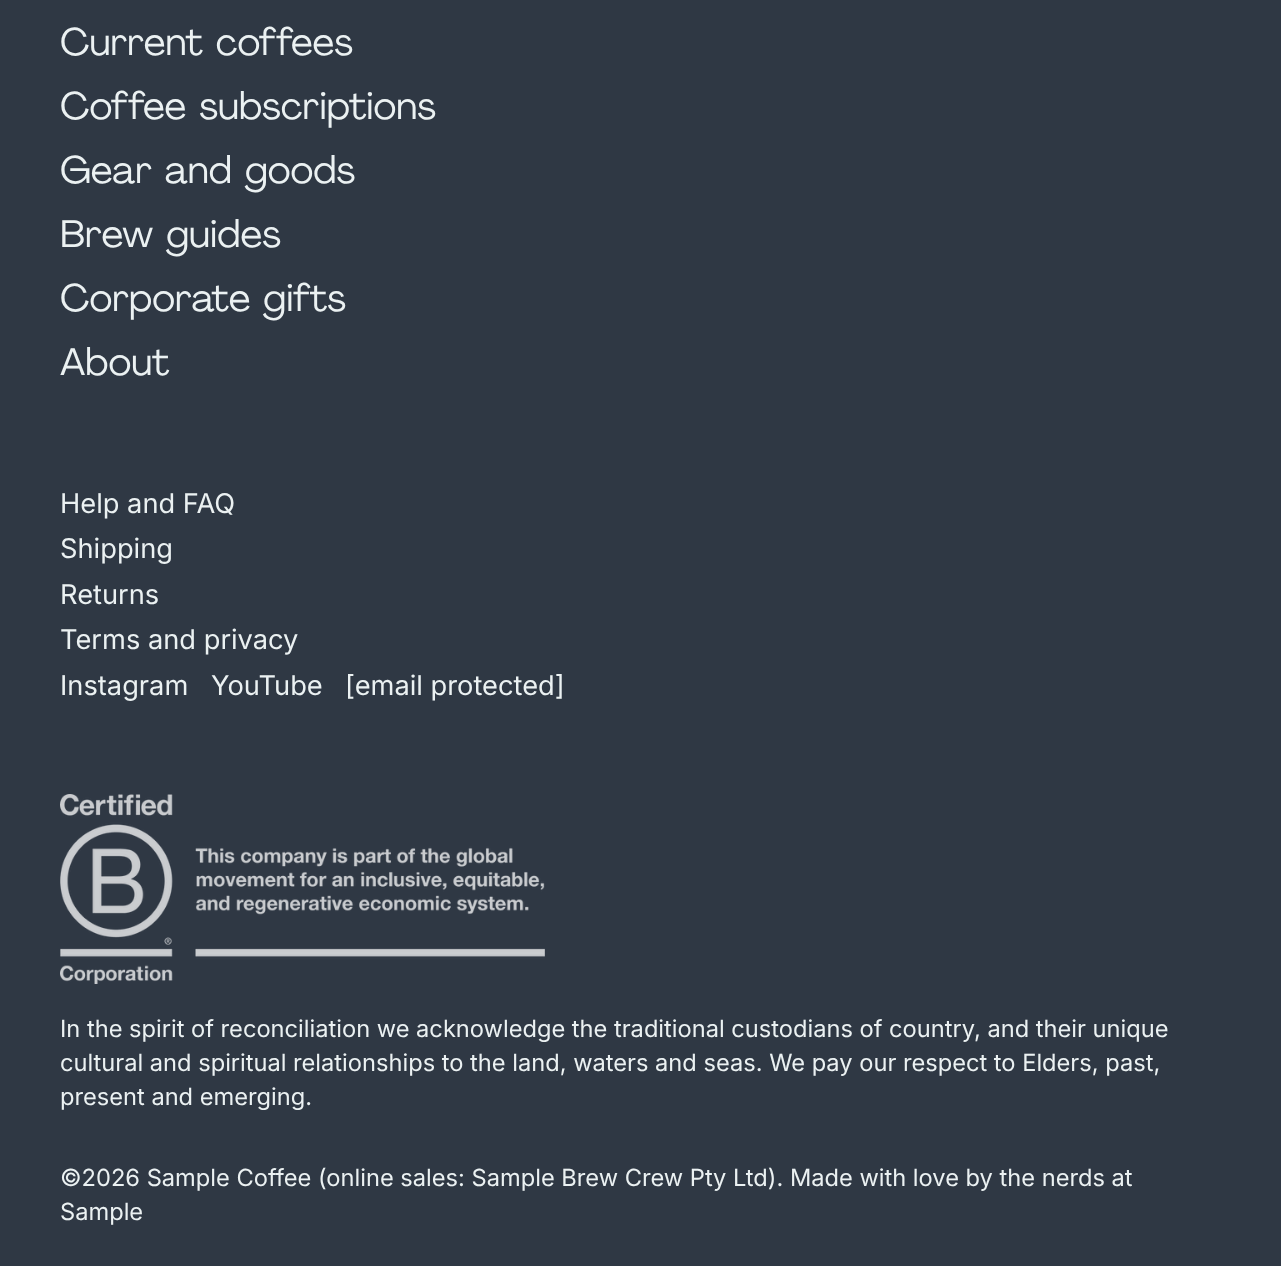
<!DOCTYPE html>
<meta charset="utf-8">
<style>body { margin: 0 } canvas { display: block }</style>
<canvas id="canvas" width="1281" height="1266"></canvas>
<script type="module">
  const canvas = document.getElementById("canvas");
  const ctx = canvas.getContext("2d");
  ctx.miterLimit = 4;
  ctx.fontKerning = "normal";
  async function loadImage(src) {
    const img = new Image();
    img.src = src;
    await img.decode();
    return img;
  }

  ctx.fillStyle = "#2f3844";
  ctx.fillRect(0, 0, 1281, 1266);
  ctx.font = "38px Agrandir";
  ctx.fillStyle = "#ebf1f2";
  ctx.fillText("Current coffees", 60, 55);
  ctx.fillText("Coffee subscriptions", 60, 119);
  ctx.fillText("Gear and goods", 60, 183);
  ctx.fillText("Brew guides", 60, 247);
  ctx.fillText("Corporate gifts", 60, 311);
  ctx.fillText("About", 60, 375);
  ctx.font = "27.25px Inter";
  ctx.fillText("Help and FAQ", 60, 513);
  ctx.fillText("Shipping", 60, 558);
  ctx.fillText("Returns", 60, 604);
  ctx.fillText("Terms and privacy", 60, 649);
  ctx.fillText("Instagram", 60, 695);
  ctx.fillText("YouTube", 211, 695);
  ctx.fillText("[email protected]", 345, 695);
  ctx.drawImage(await loadImage("img1.png"), 60, 794, 485, 190);
  ctx.font = "23.65px Inter";
  ctx.fillText("In the spirit of reconciliation we acknowledge the traditional custodians of country, and their unique", 60, 1037);
  ctx.fillText("cultural and spiritual relationships to the land, waters and seas. We pay our respect to Elders, past,", 60, 1071);
  ctx.fillText("present and emerging.", 60, 1105);
  ctx.fillText("©2026 Sample Coffee (online sales: Sample Brew Crew Pty Ltd). Made with love by the nerds at", 60, 1186);
  ctx.fillText("Sample", 60, 1220);
</script>
